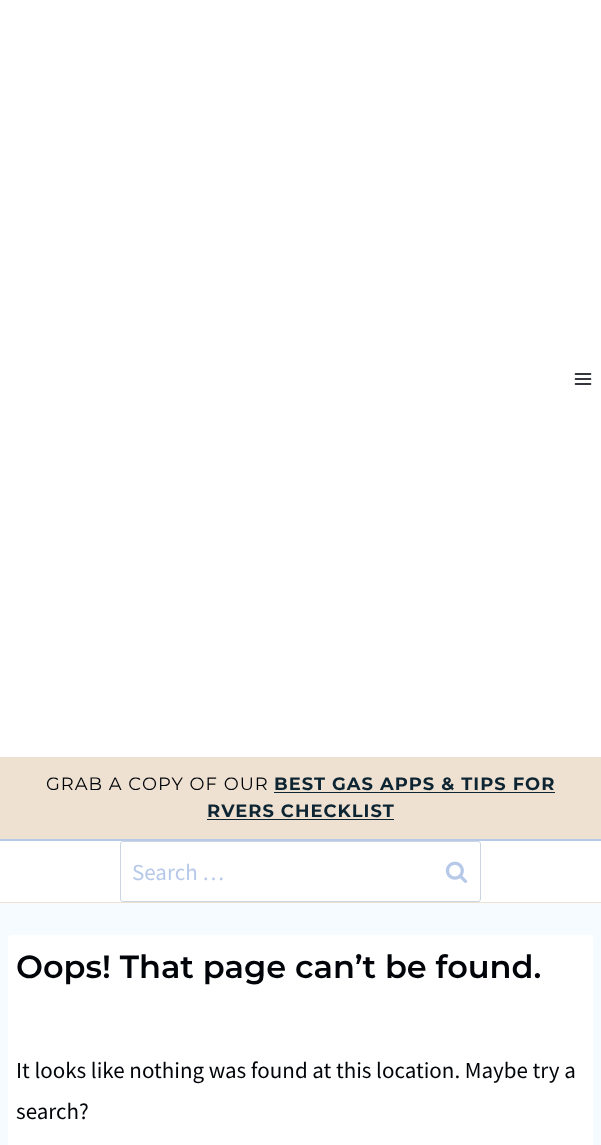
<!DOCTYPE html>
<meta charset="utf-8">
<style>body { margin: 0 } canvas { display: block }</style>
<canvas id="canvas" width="601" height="1145"></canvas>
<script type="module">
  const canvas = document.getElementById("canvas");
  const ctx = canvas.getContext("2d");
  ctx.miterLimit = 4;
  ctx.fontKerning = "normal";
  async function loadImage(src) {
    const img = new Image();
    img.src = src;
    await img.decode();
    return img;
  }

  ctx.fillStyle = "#f6fbff";
  ctx.fillRect(0, 0, 601, 1145);
  ctx.fillStyle = "#ffffff";
  ctx.fillRect(0, 0, 601, 902);
  ctx.drawImage(await loadImage("img1.png"), 574, 373, 18, 12);
  ctx.fillStyle = "#efe1d1";
  ctx.fillRect(0, 757, 601, 82);
  ctx.fillStyle = "#b7c9e8";
  ctx.fillRect(0, 839, 601, 2);
  ctx.letterSpacing = "1px";
  ctx.font = "17.9px Montserrat";
  ctx.fillStyle = "#000409";
  ctx.fillText("GRAB A COPY OF OUR", 46, 790);
  ctx.font = "bold 17.9px Montserrat";
  ctx.fillStyle = "#0d2433";
  ctx.fillText("BEST GAS APPS & TIPS FOR", 274, 790);
  ctx.fillRect(274, 792, 281, 1);
  ctx.fillText("RVERS CHECKLIST", 207, 817);
  ctx.fillRect(207, 819, 187, 1);
  ctx.fillStyle = "#efe1d1";
  ctx.fillRect(0, 902, 601, 1);
  ctx.beginPath();
  ctx.roundRect(120.5, 841.5, 360, 60, 2.5);
  ctx.strokeStyle = "#cbd5e0";
  ctx.stroke();
  ctx.letterSpacing = "0px";
  ctx.font = "23px Source Sans Pro";
  ctx.fillStyle = "#b7c9e8";
  ctx.fillText("Search …", 132, 880);
  ctx.drawImage(await loadImage("img2.png"), 445, 861, 23, 22);
  ctx.fillStyle = "#ffffff";
  ctx.beginPath();
  ctx.roundRect(8, 935, 585, 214, 4);
  ctx.fill();
  ctx.font = "600 32px Montserrat";
  ctx.fillStyle = "#000409";
  ctx.fillText("Oops! That page can’t be found.", 16, 978);
  ctx.font = "23px Source Sans Pro";
  ctx.fillText("It looks like nothing was found at this location. Maybe try a", 16, 1078);
  ctx.fillText("search?", 16, 1119);
</script>
